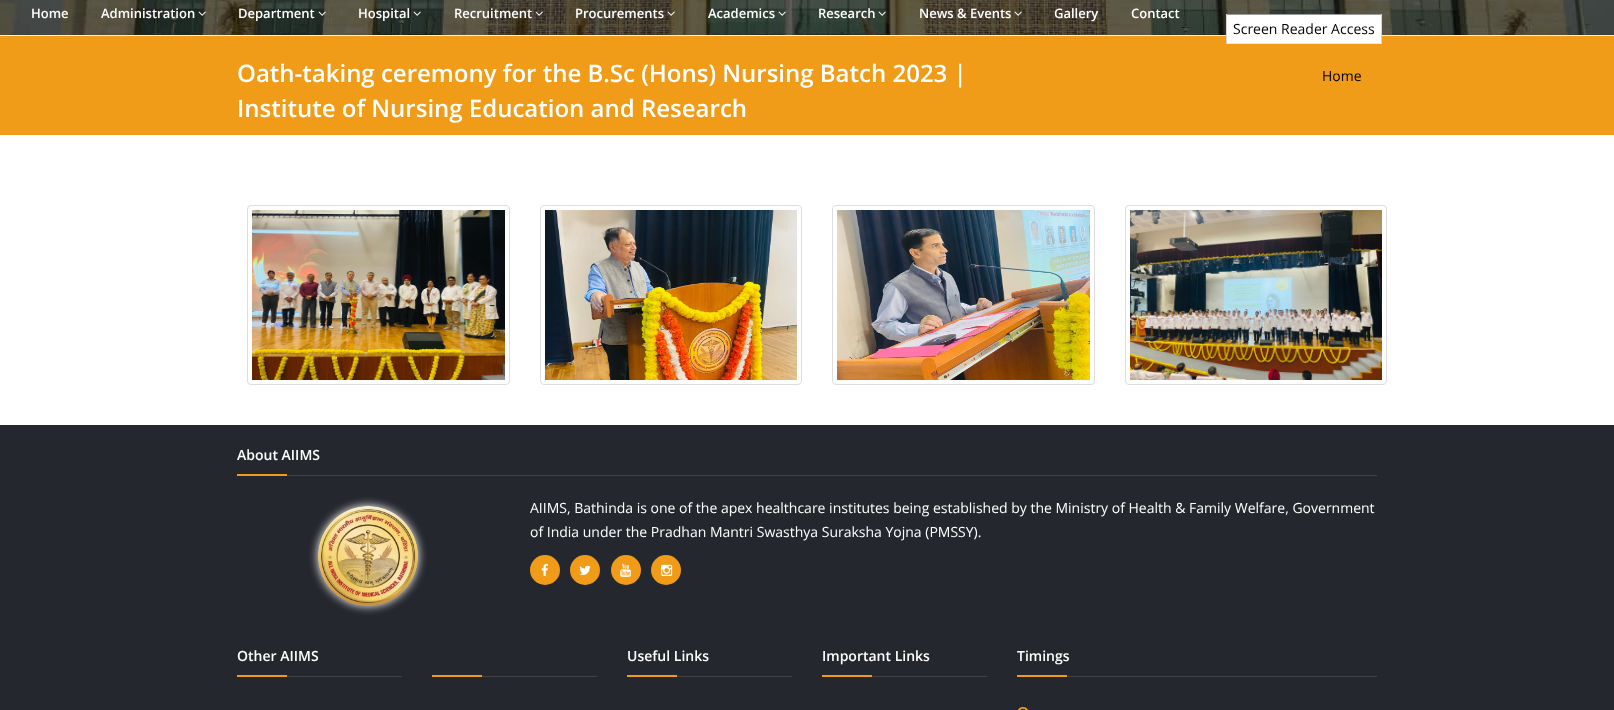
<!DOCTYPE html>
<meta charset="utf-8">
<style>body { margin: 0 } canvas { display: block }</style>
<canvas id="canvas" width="1614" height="710"></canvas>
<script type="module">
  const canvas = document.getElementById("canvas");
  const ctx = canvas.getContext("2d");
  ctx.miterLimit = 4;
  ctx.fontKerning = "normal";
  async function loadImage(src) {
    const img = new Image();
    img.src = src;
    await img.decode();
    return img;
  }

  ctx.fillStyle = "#ffffff";
  ctx.fillRect(0, 0, 1614, 710);
  ctx.drawImage(await loadImage("img1.png"), 0, 0, 1614, 35);
  ctx.fillStyle = "#eeeeee";
  ctx.fillRect(0, 35, 1614, 1);
  ctx.font = "600 13px Open Sans";
  ctx.fillStyle = "#ffffff";
  ctx.fillText("Home", 31, 18);
  ctx.fillText("Administration", 101, 18);
  ctx.drawImage(await loadImage("img2.png"), 198, 11, 8, 5);
  ctx.fillText("Department", 238, 18);
  ctx.drawImage(await loadImage("img3.png"), 318, 11, 8, 5);
  ctx.fillText("Hospital", 358, 18);
  ctx.drawImage(await loadImage("img4.png"), 413, 11, 8, 5);
  ctx.fillText("Recruitment", 454, 18);
  ctx.drawImage(await loadImage("img5.png"), 535, 11, 8, 5);
  ctx.fillText("Procurements", 575, 18);
  ctx.drawImage(await loadImage("img6.png"), 667, 11, 8, 5);
  ctx.fillText("Academics", 708, 18);
  ctx.drawImage(await loadImage("img7.png"), 778, 11, 8, 5);
  ctx.fillText("Research", 818, 18);
  ctx.drawImage(await loadImage("img8.png"), 878, 11, 8, 5);
  ctx.fillText("News & Events", 919, 18);
  ctx.drawImage(await loadImage("img9.png"), 1014, 11, 8, 5);
  ctx.fillText("Gallery", 1054, 18);
  ctx.fillText("Contact", 1131, 18);
  ctx.fillStyle = "#f09c18";
  ctx.fillRect(0, 36, 1614, 99);
  ctx.fillStyle = "#ffffff";
  ctx.fillRect(1227, 15, 154, 28);
  ctx.fillStyle = "#9b9b9b";
  ctx.fillRect(1226, 14, 156, 1);
  ctx.fillStyle = "#d5d5d5";
  ctx.fillRect(1381, 14, 1, 30);
  ctx.fillStyle = "#e8e8e8";
  ctx.fillRect(1226, 43, 156, 1);
  ctx.fillStyle = "#d5d5d5";
  ctx.fillRect(1226, 14, 1, 30);
  ctx.font = "14px Open Sans";
  ctx.fillStyle = "#000000";
  ctx.fillText("Screen Reader Access", 1233, 34);
  ctx.font = "600 24px Open Sans";
  ctx.fillStyle = "#ffffff";
  ctx.fillText("Oath-taking ceremony for the B.Sc (Hons) Nursing Batch 2023 |", 237, 82);
  ctx.fillText("Institute of Nursing Education and Research", 237, 117);
  ctx.font = "14px Open Sans";
  ctx.fillStyle = "#000000";
  ctx.fillText("Home", 1322, 81);
  ctx.beginPath();
  ctx.roundRect(247.5, 205.5, 262, 179, 3.5);
  ctx.strokeStyle = "#dddddd";
  ctx.stroke();
  ctx.drawImage(await loadImage("img10.png"), 252, 210, 253, 170);
  ctx.beginPath();
  ctx.roundRect(540.5, 205.5, 261, 179, 3.5);
  ctx.stroke();
  ctx.drawImage(await loadImage("img11.png"), 545, 210, 252, 170);
  ctx.beginPath();
  ctx.roundRect(832.5, 205.5, 262, 179, 3.5);
  ctx.stroke();
  ctx.drawImage(await loadImage("img12.png"), 837, 210, 253, 170);
  ctx.beginPath();
  ctx.roundRect(1125.5, 205.5, 261, 179, 3.5);
  ctx.stroke();
  ctx.drawImage(await loadImage("img13.png"), 1130, 210, 252, 170);
  ctx.fillStyle = "#25272e";
  ctx.fillRect(0, 425, 1614, 285);
  ctx.fillStyle = "#444444";
  ctx.fillRect(287, 475, 1090, 1);
  ctx.font = "600 14px Open Sans";
  ctx.fillStyle = "#ffffff";
  ctx.fillText("About AIIMS", 237, 460);
  ctx.fillStyle = "#f09c18";
  ctx.fillRect(237, 474, 50, 2);
  ctx.fillStyle = "#ffffff";
  ctx.filter = "blur(5px)";
  ctx.beginPath();
  ctx.roundRect(318, 506, 100, 100, 50);
  ctx.fill();
  ctx.filter = "none";
  ctx.drawImage(await loadImage("img14.png"), 318, 506, 100, 100);
  ctx.font = "14px Open Sans";
  ctx.fillText("AIIMS, Bathinda is one of the apex healthcare institutes being established by the Ministry of Health & Family Welfare, Government", 530, 513);
  ctx.fillText("of India under the Pradhan Mantri Swasthya Suraksha Yojna (PMSSY).", 530, 537);
  ctx.fillStyle = "#f09c18";
  ctx.beginPath();
  ctx.arc(545, 570, 15, 0, Math.PI * 2);
  ctx.fill();
  ctx.drawImage(await loadImage("img15.png"), 541, 563, 7, 13);
  ctx.beginPath();
  ctx.arc(585, 570, 15, 0, Math.PI * 2);
  ctx.fill();
  ctx.drawImage(await loadImage("img16.png"), 579, 565, 12, 10);
  ctx.beginPath();
  ctx.arc(626, 570, 15, 0, Math.PI * 2);
  ctx.fill();
  ctx.drawImage(await loadImage("img17.png"), 620, 563, 11, 14);
  ctx.beginPath();
  ctx.arc(666, 570, 15, 0, Math.PI * 2);
  ctx.fill();
  ctx.drawImage(await loadImage("img18.png"), 661, 564, 12, 12);
  ctx.fillStyle = "#444444";
  ctx.fillRect(287, 676, 115, 1);
  ctx.font = "600 14px Open Sans";
  ctx.fillStyle = "#ffffff";
  ctx.fillText("Other AIIMS", 237, 661);
  ctx.fillStyle = "#f09c18";
  ctx.fillRect(237, 675, 50, 2);
  ctx.fillStyle = "#444444";
  ctx.fillRect(677, 676, 115, 1);
  ctx.fillStyle = "#ffffff";
  ctx.fillText("Useful Links", 627, 661);
  ctx.fillStyle = "#f09c18";
  ctx.fillRect(627, 675, 50, 2);
  ctx.fillStyle = "#444444";
  ctx.fillRect(872, 676, 115, 1);
  ctx.fillStyle = "#ffffff";
  ctx.fillText("Important Links", 822, 661);
  ctx.fillStyle = "#f09c18";
  ctx.fillRect(822, 675, 50, 2);
  ctx.fillStyle = "#444444";
  ctx.fillRect(1067, 676, 310, 1);
  ctx.fillStyle = "#ffffff";
  ctx.fillText("Timings", 1017, 661);
  ctx.fillStyle = "#f09c18";
  ctx.fillRect(1017, 675, 50, 2);
  ctx.drawImage(await loadImage("img19.png"), 1017, 707, 12, 3);
  ctx.fillStyle = "#444444";
  ctx.fillRect(482, 676, 115, 1);
  ctx.fillStyle = "#f09c18";
  ctx.fillRect(432, 675, 50, 2);
</script>
